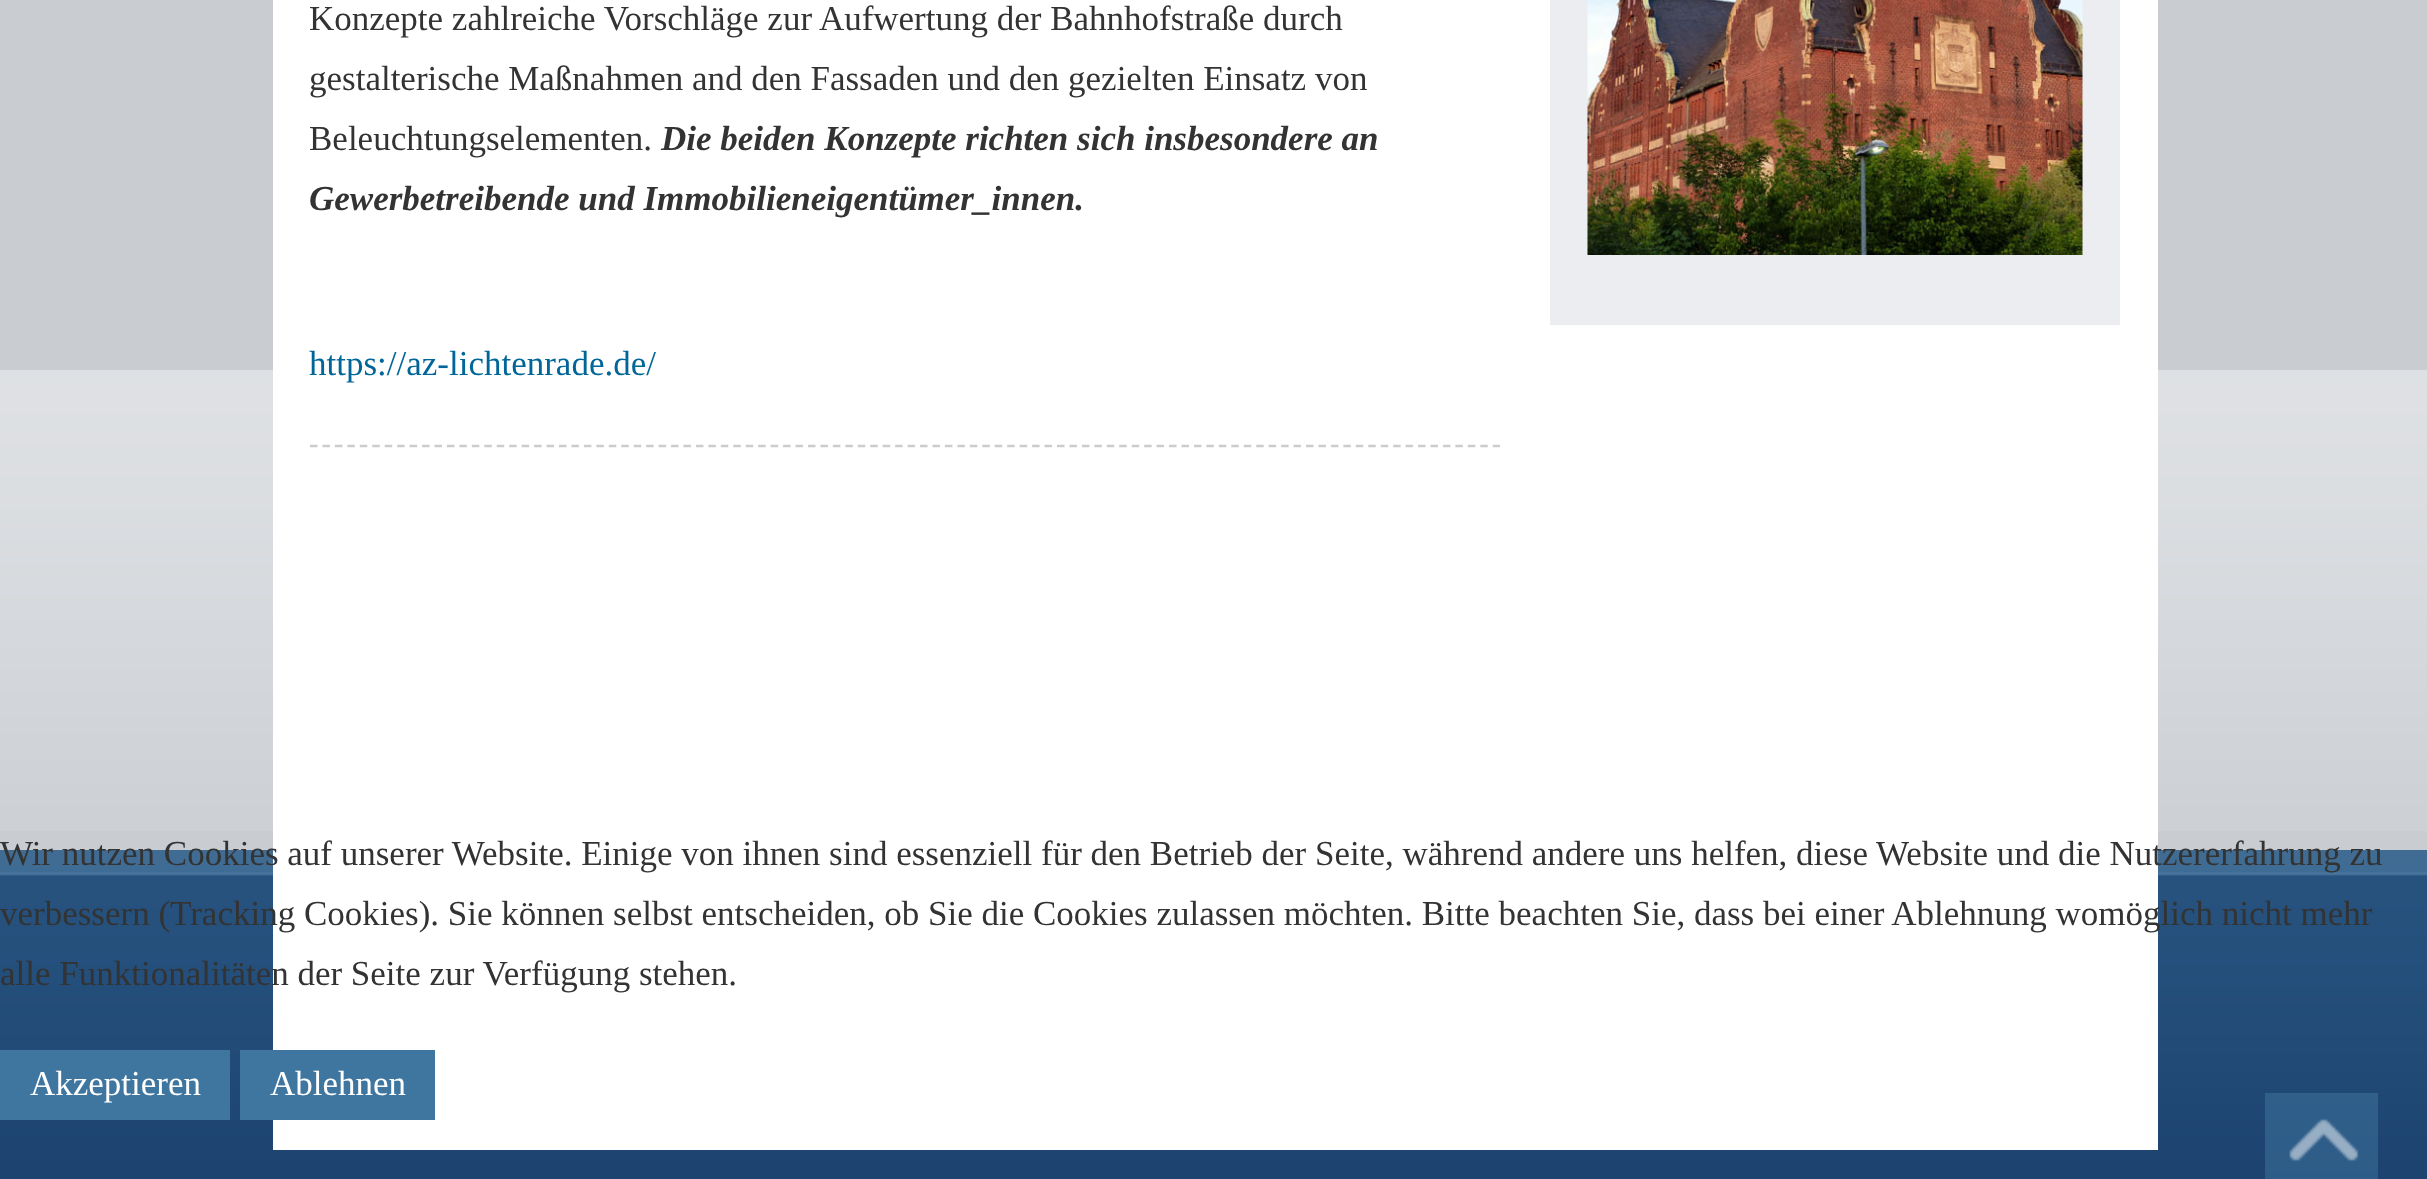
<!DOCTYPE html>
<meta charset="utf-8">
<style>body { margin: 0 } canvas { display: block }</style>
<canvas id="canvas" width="2427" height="1179"></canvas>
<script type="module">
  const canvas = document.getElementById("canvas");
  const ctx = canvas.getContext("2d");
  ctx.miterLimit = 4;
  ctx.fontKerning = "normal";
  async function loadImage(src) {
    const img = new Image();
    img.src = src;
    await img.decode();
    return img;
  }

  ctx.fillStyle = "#c9cdd2";
  ctx.fillRect(0, 0, 2427, 1179);
  ctx.drawImage(await loadImage("img1.png"), 0, 370, 2427, 461);
  ctx.drawImage(await loadImage("img3.png"), 0, 850, 2427, 329);
  ctx.fillStyle = "#ffffff";
  ctx.fillRect(273, 0, 1885, 1150);
  ctx.font = "35px Liberation Serif";
  ctx.fillStyle = "#333333";
  ctx.fillText("Konzepte zahlreiche Vorschläge zur Aufwertung der Bahnhofstraße durch", 309, 30);
  ctx.fillText("gestalterische Maßnahmen and den Fassaden und den gezielten Einsatz von", 309, 90);
  ctx.fillText("Beleuchtungselementen.", 309, 150);
  ctx.font = "italic bold 35px Liberation Serif";
  ctx.fillText("Die beiden Konzepte richten sich insbesondere an", 661, 150);
  ctx.fillText("Gewerbetreibende und Immobilieneigentümer_innen.", 309, 210);
  ctx.font = "35px Liberation Serif";
  ctx.fillStyle = "#006699";
  ctx.fillText("https://az-lichtenrade.de/", 309, 375);
  ctx.beginPath();
  ctx.moveTo(310, 446);
  ctx.lineTo(1500, 446);
  ctx.strokeStyle = "#cccccc";
  ctx.lineWidth = 2.5;
  ctx.setLineDash([7.5, 4.95]);
  ctx.stroke();
  ctx.fillStyle = "#ebedf0";
  ctx.fillRect(1550, 0, 570, 325);
  ctx.drawImage(await loadImage("img2.png"), 1587, 0, 496, 255);
  ctx.fillStyle = "#333333";
  ctx.fillText("Wir nutzen Cookies auf unserer Website. Einige von ihnen sind essenziell für den Betrieb der Seite, während andere uns helfen, diese Website und die Nutzererfahrung zu", 0, 865);
  ctx.fillText("verbessern (Tracking Cookies). Sie können selbst entscheiden, ob Sie die Cookies zulassen möchten. Bitte beachten Sie, dass bei einer Ablehnung womöglich nicht mehr", 0, 925);
  ctx.fillText("alle Funktionalitäten der Seite zur Verfügung stehen.", 0, 985);
  ctx.fillStyle = "#3f76a0";
  ctx.fillRect(0, 1050, 230, 70);
  ctx.fillStyle = "#ffffff";
  ctx.fillText("Akzeptieren", 30, 1095);
  ctx.fillStyle = "#3f76a0";
  ctx.fillRect(240, 1050, 195, 70);
  ctx.fillStyle = "#ffffff";
  ctx.fillText("Ablehnen", 270, 1095);
  ctx.fillStyle = "rgba(63, 118, 160, 0.5)";
  ctx.fillRect(2265, 1093, 113, 86);
  ctx.drawImage(await loadImage("img4.png"), 2289, 1119, 70, 43);
</script>
